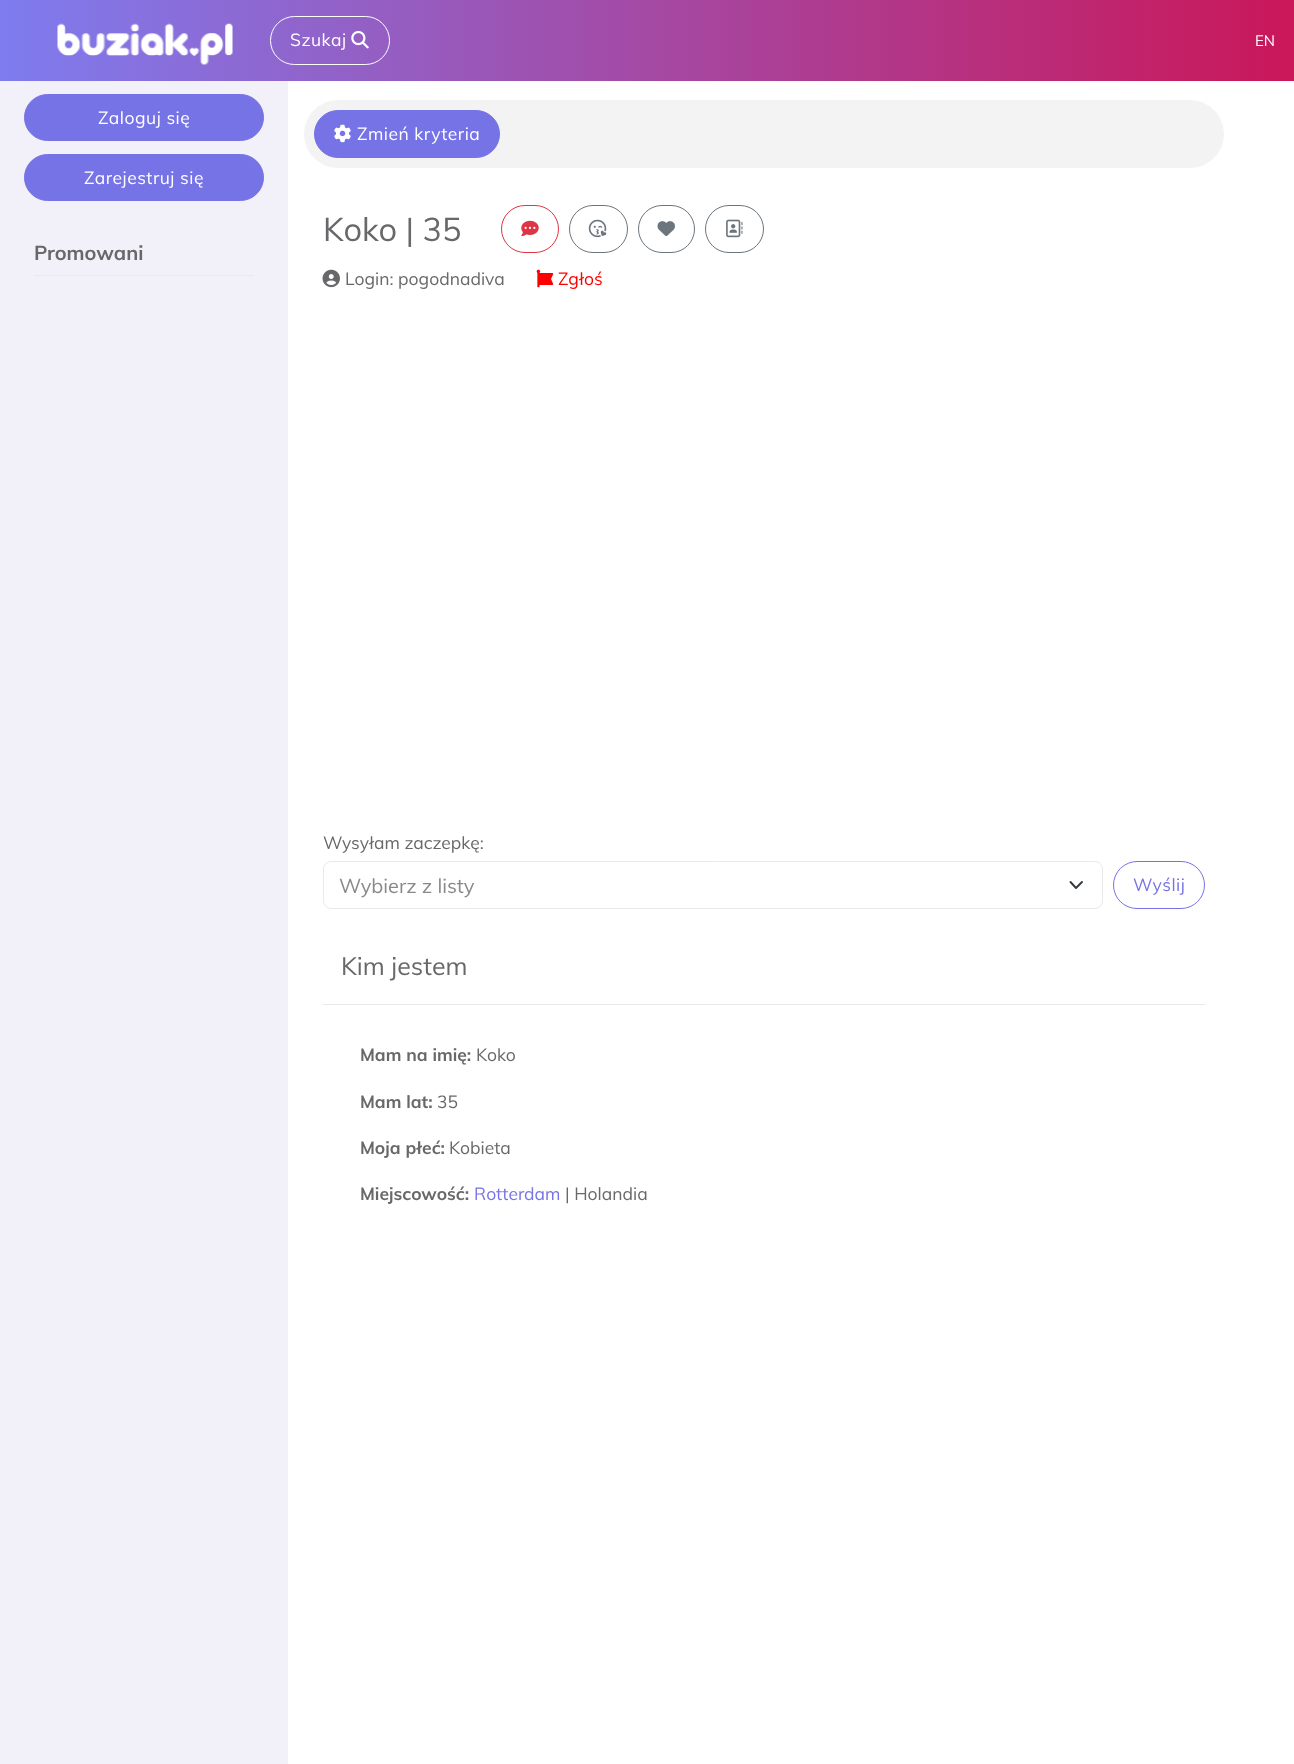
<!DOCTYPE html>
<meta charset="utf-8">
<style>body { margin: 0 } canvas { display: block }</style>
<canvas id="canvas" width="1294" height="1764"></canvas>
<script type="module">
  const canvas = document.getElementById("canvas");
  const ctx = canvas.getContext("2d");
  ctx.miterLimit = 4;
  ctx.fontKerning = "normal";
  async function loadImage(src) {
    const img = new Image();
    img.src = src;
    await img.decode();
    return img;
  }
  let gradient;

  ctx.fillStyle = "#ffffff";
  ctx.fillRect(0, 0, 1294, 1764);
  gradient = ctx.createLinearGradient(0, 41, 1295, 41);
  gradient.addColorStop(0, "#7e7cef");
  gradient.addColorStop(1, "#ca1759");
  ctx.fillStyle = gradient;
  ctx.fillRect(0, 0, 1294, 81);
  ctx.drawImage(await loadImage("img1.png"), 57, 23, 176, 42);
  ctx.beginPath();
  ctx.roundRect(270.5, 16.5, 119, 48, 24);
  ctx.strokeStyle = "#ffffff";
  ctx.stroke();
  ctx.letterSpacing = "0.5px";
  ctx.font = "17.5px Muli";
  ctx.fillStyle = "#ffffff";
  ctx.fillText("Szukaj", 290, 46);
  ctx.drawImage(await loadImage("img2.png"), 351, 30, 18, 19);
  ctx.letterSpacing = "0px";
  ctx.font = "15px Muli";
  ctx.fillText("EN", 1255, 46);
  ctx.fillStyle = "#f2f1f9";
  ctx.fillRect(0, 81, 288, 1683);
  ctx.fillStyle = "#7673e6";
  ctx.beginPath();
  ctx.roundRect(24.5, 94.5, 239, 46, 23);
  ctx.fill();
  ctx.strokeStyle = "#7673e6";
  ctx.stroke();
  ctx.letterSpacing = "0.5px";
  ctx.font = "17.5px Muli";
  ctx.fillStyle = "#ffffff";
  ctx.fillText("Zaloguj się", 98, 124);
  ctx.fillStyle = "#7673e6";
  ctx.beginPath();
  ctx.roundRect(24.5, 154.5, 239, 46, 23);
  ctx.fill();
  ctx.stroke();
  ctx.fillStyle = "#ffffff";
  ctx.fillText("Zarejestruj się", 84, 184);
  ctx.fillStyle = "#e6eaea";
  ctx.fillRect(34, 275, 220, 1);
  ctx.letterSpacing = "0px";
  ctx.font = "bold 20px Muli";
  ctx.fillStyle = "#68686b";
  ctx.fillText("Promowani", 34, 260);
  ctx.fillStyle = "#f3f3f3";
  ctx.beginPath();
  ctx.roundRect(304, 100, 920, 68, 34);
  ctx.fill();
  ctx.fillStyle = "#7673e6";
  ctx.beginPath();
  ctx.roundRect(314.5, 110.5, 185, 47, 23.5);
  ctx.fill();
  ctx.stroke();
  ctx.drawImage(await loadImage("img3.png"), 334, 124, 17, 19);
  ctx.letterSpacing = "0.5px";
  ctx.font = "17.5px Muli";
  ctx.fillStyle = "#ffffff";
  ctx.fillText("Zmień kryteria", 357, 140);
  ctx.letterSpacing = "0px";
  ctx.font = "32.5px Muli";
  ctx.fillStyle = "#68686b";
  ctx.fillText("Koko | 35", 323, 241);
  ctx.beginPath();
  ctx.roundRect(501.5, 205.5, 57, 47, 23.5);
  ctx.strokeStyle = "#dc3545";
  ctx.stroke();
  ctx.drawImage(await loadImage("img4.png"), 521, 220, 18, 17);
  ctx.beginPath();
  ctx.roundRect(569.5, 205.5, 58, 47, 23.5);
  ctx.strokeStyle = "#6c757d";
  ctx.stroke();
  ctx.drawImage(await loadImage("img5.png"), 588, 219, 19, 19);
  ctx.beginPath();
  ctx.roundRect(638.5, 205.5, 56, 47, 23.5);
  ctx.stroke();
  ctx.drawImage(await loadImage("img6.png"), 657, 221, 18, 16);
  ctx.beginPath();
  ctx.roundRect(705.5, 205.5, 58, 47, 23.5);
  ctx.stroke();
  ctx.drawImage(await loadImage("img7.png"), 726, 219, 17, 19);
  ctx.drawImage(await loadImage("img8.png"), 322, 269, 18, 19);
  ctx.font = "17.5px Muli";
  ctx.fillText("Login: pogodnadiva", 345, 285);
  ctx.drawImage(await loadImage("img9.png"), 536, 269, 18, 19);
  ctx.fillStyle = "#ff0000";
  ctx.fillText("Zgłoś", 558, 285);
  ctx.fillStyle = "#68686b";
  ctx.fillText("Wysyłam zaczepkę:", 323, 849);
  ctx.beginPath();
  ctx.moveTo(1070.5, 882);
  ctx.lineTo(1076, 888);
  ctx.lineTo(1082, 882);
  ctx.strokeStyle = "#343a40";
  ctx.lineWidth = 1.9;
  ctx.lineCap = "round";
  ctx.lineJoin = "round";
  ctx.stroke();
  ctx.beginPath();
  ctx.roundRect(323.5, 861.5, 779, 47, 7.5);
  ctx.strokeStyle = "#e6eaea";
  ctx.lineWidth = 1;
  ctx.lineJoin = "miter";
  ctx.stroke();
  ctx.font = "20px Muli";
  ctx.fillStyle = "#888a8a";
  ctx.fillText("Wybierz z listy", 339, 893);
  ctx.beginPath();
  ctx.roundRect(1113.5, 861.5, 91, 47, 23.5);
  ctx.strokeStyle = "#7673e6";
  ctx.stroke();
  ctx.letterSpacing = "0.5px";
  ctx.font = "17.5px Muli";
  ctx.fillStyle = "#7673e6";
  ctx.fillText("Wyślij", 1133, 891);
  ctx.fillStyle = "#e6eaea";
  ctx.fillRect(323, 1004, 882, 1);
  ctx.letterSpacing = "0px";
  ctx.font = "25px Muli";
  ctx.fillStyle = "#68686b";
  ctx.fillText("Kim jestem", 341, 975);
  ctx.font = "bold 17.5px Muli";
  ctx.fillText("Mam na imię:", 360, 1061);
  ctx.font = "17.5px Muli";
  ctx.fillText("Koko", 476, 1061);
  ctx.font = "bold 17.5px Muli";
  ctx.fillText("Mam lat:", 360, 1108);
  ctx.font = "17.5px Muli";
  ctx.fillText("35", 437, 1108);
  ctx.font = "bold 17.5px Muli";
  ctx.fillText("Moja płeć:", 360, 1154);
  ctx.font = "17.5px Muli";
  ctx.fillText("Kobieta", 449, 1154);
  ctx.font = "bold 17.5px Muli";
  ctx.fillText("Miejscowość:", 360, 1200);
  ctx.font = "17.5px Muli";
  ctx.fillStyle = "#7673e6";
  ctx.fillText("Rotterdam", 474, 1200);
  ctx.fillStyle = "#68686b";
  ctx.fillText("| Holandia", 565, 1200);
</script>
